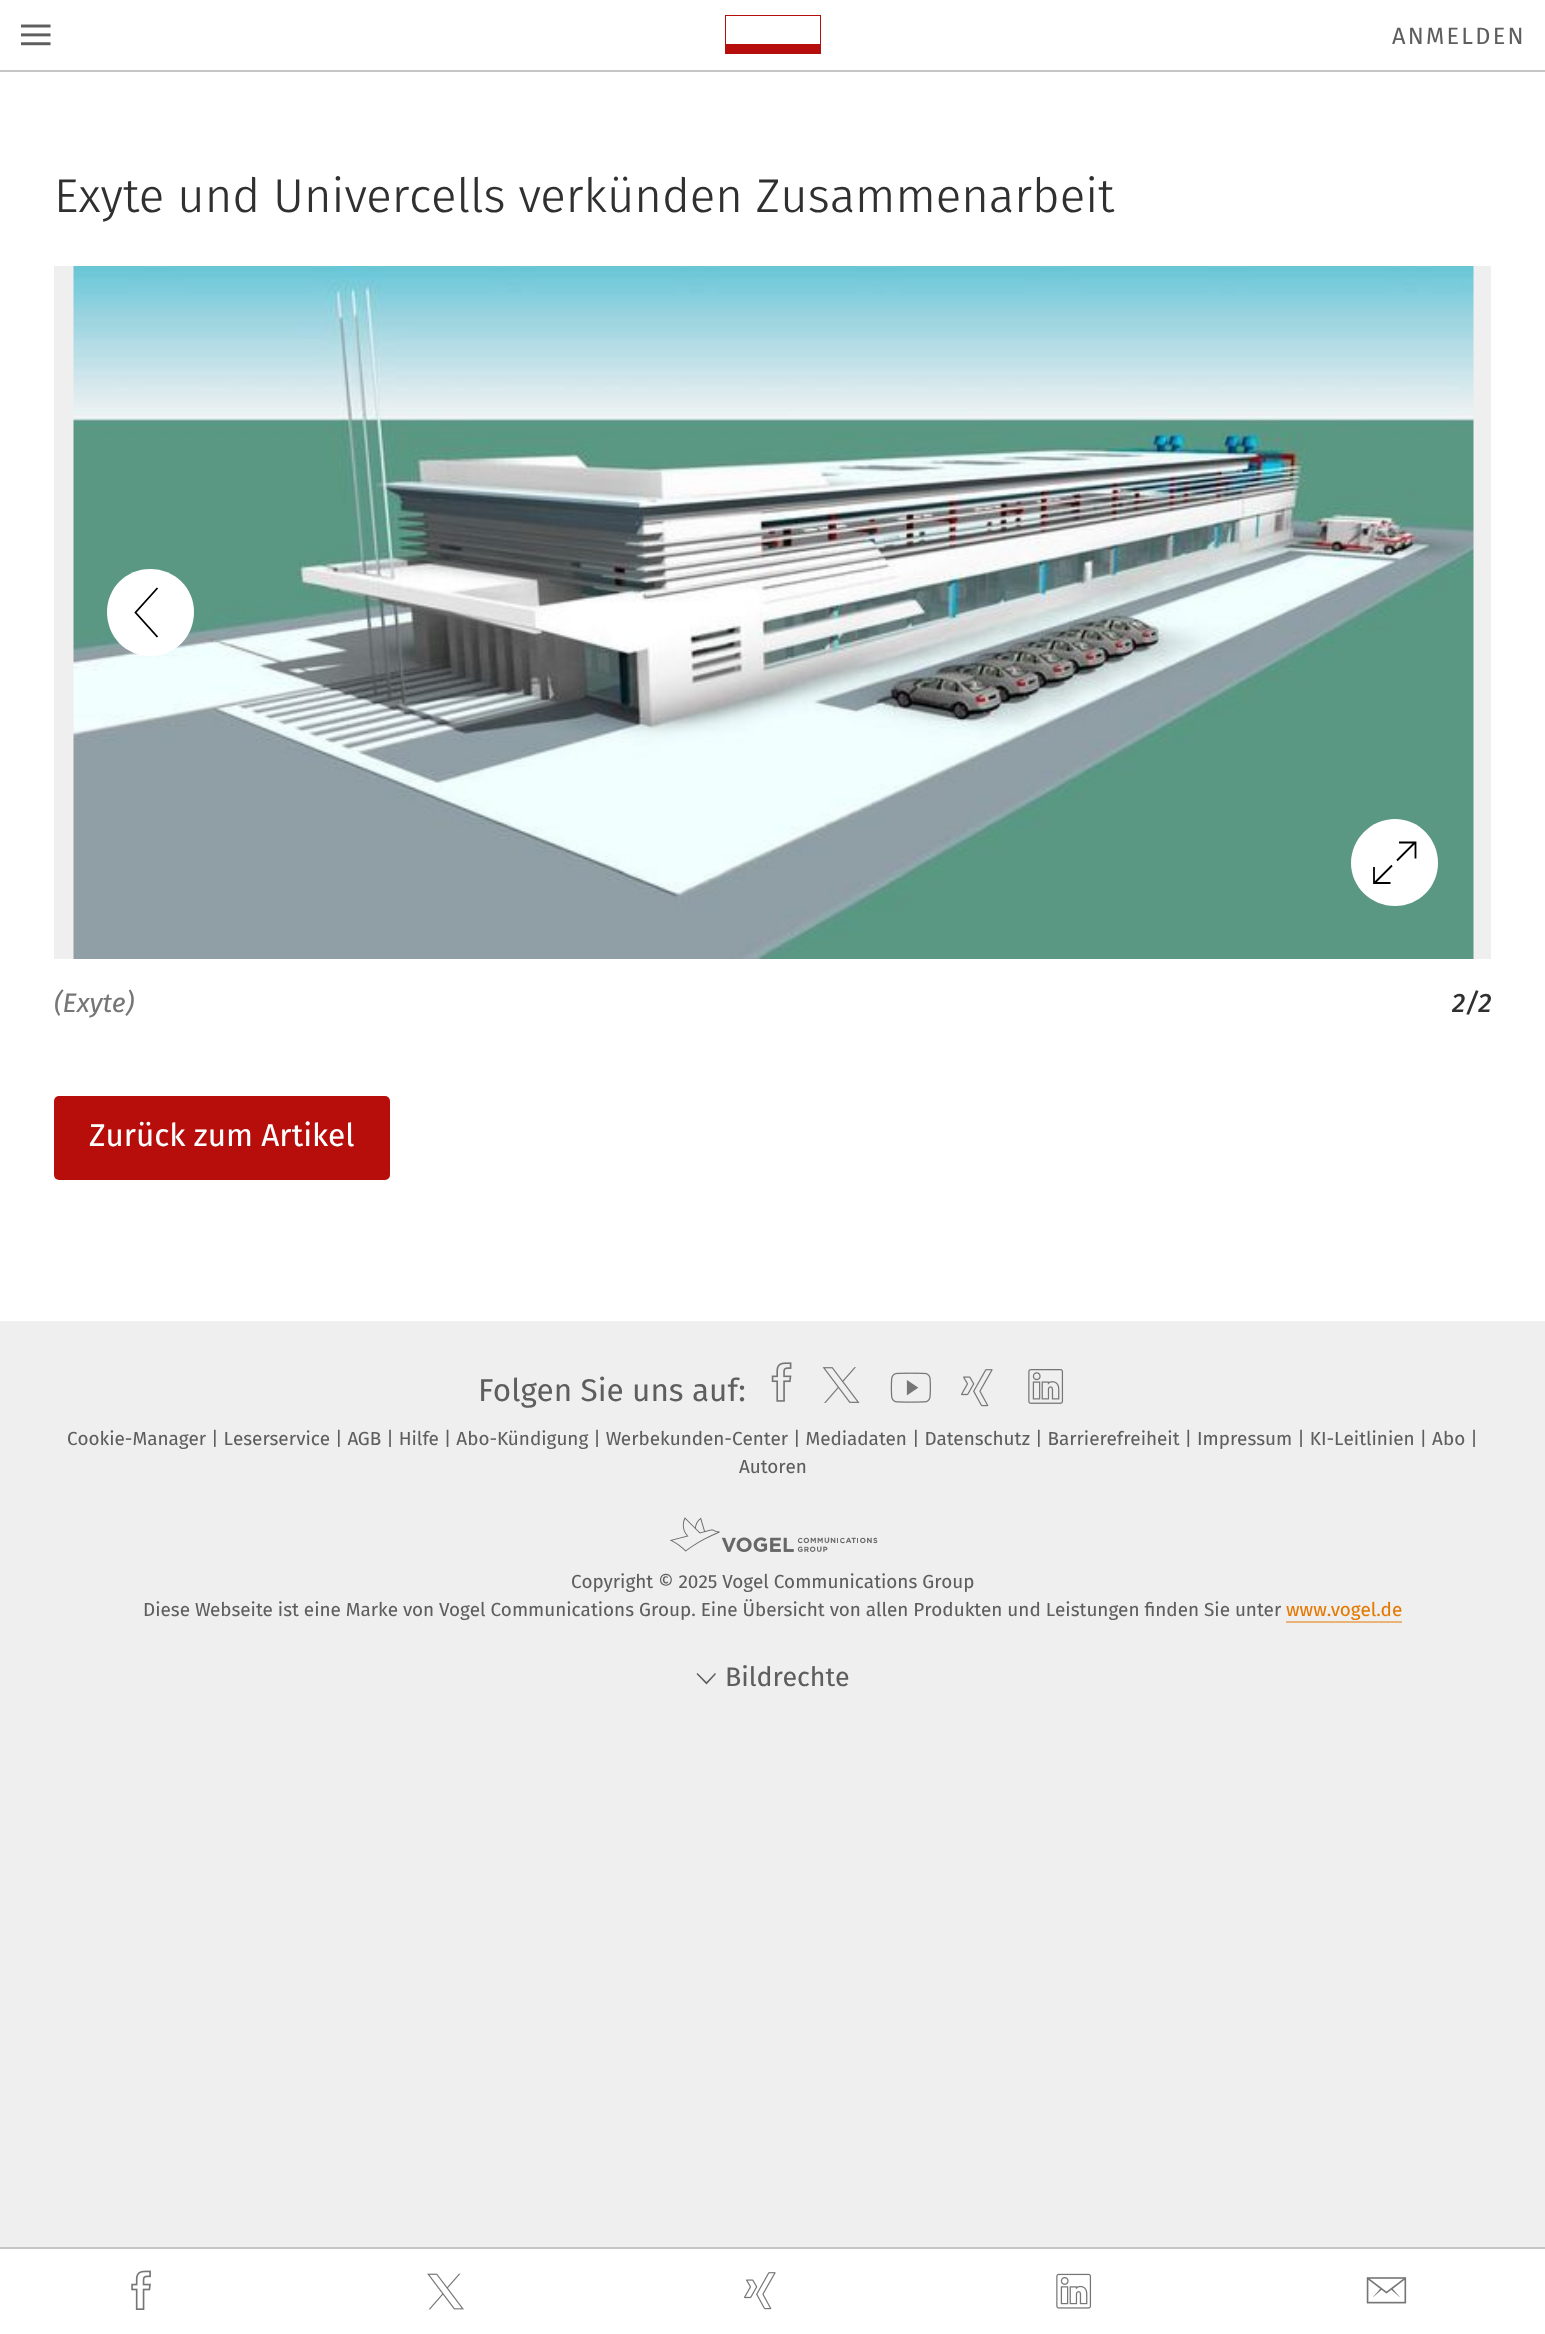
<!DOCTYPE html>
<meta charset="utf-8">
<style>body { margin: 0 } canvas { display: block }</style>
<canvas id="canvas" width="1545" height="2334"></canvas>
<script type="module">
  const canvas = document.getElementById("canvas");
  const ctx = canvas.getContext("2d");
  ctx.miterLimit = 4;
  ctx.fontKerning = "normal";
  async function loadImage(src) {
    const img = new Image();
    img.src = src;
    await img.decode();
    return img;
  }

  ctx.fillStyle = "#efefef";
  ctx.fillRect(0, 0, 1545, 2334);
  ctx.fillStyle = "#ffffff";
  ctx.fillRect(0, 72, 1545, 1249);
  ctx.fillRect(0, 0, 1545, 70);
  ctx.fillStyle = "#c6c6c6";
  ctx.fillRect(0, 70, 1545, 2);
  ctx.drawImage(await loadImage("img1.png"), 21, 24, 30, 22);
  ctx.fillStyle = "#b60e0c";
  ctx.fillRect(725, 15, 96, 39);
  ctx.fillStyle = "#ffffff";
  ctx.fillRect(726, 16, 94, 28);
  ctx.letterSpacing = "2.25px";
  ctx.font = "23.5px 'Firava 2'";
  ctx.fillStyle = "#5e5e5e";
  ctx.fillText("ANMELDEN", 1392, 44);
  ctx.letterSpacing = "0px";
  ctx.font = "300 47.25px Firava";
  ctx.fillStyle = "#303030";
  ctx.fillText("Exyte und Univercells verkünden Zusammenarbeit", 54, 212);
  ctx.fillStyle = "#efefef";
  ctx.fillRect(54, 266, 1437, 693);
  ctx.drawImage(await loadImage("img2.png"), 73, 266, 1401, 693);
  ctx.fillStyle = "#ffffff";
  ctx.beginPath();
  ctx.moveTo(150, 656);
  ctx.bezierCurveTo(175, 656, 194, 637, 194, 612);
  ctx.bezierCurveTo(194, 588, 175, 569, 150, 569);
  ctx.bezierCurveTo(126, 569, 107, 588, 107, 612);
  ctx.bezierCurveTo(107, 637, 126, 656, 150, 656);
  ctx.fill();
  ctx.beginPath();
  ctx.moveTo(157.5, 588);
  ctx.lineTo(135.5, 612.5);
  ctx.lineTo(157.5, 637);
  ctx.strokeStyle = "#000000";
  ctx.lineWidth = 1.8;
  ctx.stroke();
  ctx.beginPath();
  ctx.moveTo(1395, 906);
  ctx.bezierCurveTo(1419, 906, 1438, 887, 1438, 863);
  ctx.bezierCurveTo(1438, 839, 1419, 819, 1395, 819);
  ctx.bezierCurveTo(1371, 819, 1351, 839, 1351, 863);
  ctx.bezierCurveTo(1351, 887, 1371, 906, 1395, 906);
  ctx.fill();
  ctx.beginPath();
  ctx.moveTo(1415.5, 858.5);
  ctx.lineTo(1415.5, 842.5);
  ctx.lineTo(1399, 842.5);
  ctx.moveTo(1374, 867);
  ctx.lineTo(1374, 883);
  ctx.lineTo(1390.5, 883);
  ctx.moveTo(1414.5, 843);
  ctx.lineTo(1397, 860.5);
  ctx.moveTo(1392, 865.5);
  ctx.lineTo(1374.5, 883);
  ctx.stroke();
  ctx.font = "italic 26.75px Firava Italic";
  ctx.fillStyle = "#767676";
  ctx.fillText("(Exyte)", 54, 1012);
  ctx.font = "italic 500 26.75px Firava Italic";
  ctx.fillStyle = "#303030";
  ctx.fillText("2/2", 1452, 1012);
  ctx.fillStyle = "#b70e0c";
  ctx.beginPath();
  ctx.roundRect(54, 1096, 336, 84, 5);
  ctx.fill();
  ctx.font = "31.5px Firava";
  ctx.fillStyle = "#ffffff";
  ctx.fillText("Zurück zum Artikel", 89, 1146);
  ctx.fillRect(0, 2249, 1545, 85);
  ctx.fillStyle = "#c6c6c6";
  ctx.fillRect(0, 2247, 1545, 2);
  ctx.drawImage(await loadImage("img3.png"), 131, 2270, 20, 40);
  ctx.drawImage(await loadImage("img4.png"), 427, 2273, 37, 37);
  ctx.drawImage(await loadImage("img5.png"), 744, 2272, 32, 38);
  ctx.drawImage(await loadImage("img6.png"), 1056, 2273, 36, 36);
  ctx.drawImage(await loadImage("img7.png"), 1366, 2277, 41, 27);
  ctx.font = "31.5px 'Firava 2'";
  ctx.fillStyle = "#5e5e5e";
  ctx.fillText("Folgen Sie uns auf:", 478, 1401);
  ctx.drawImage(await loadImage("img8.png"), 771, 1362, 21, 40);
  ctx.drawImage(await loadImage("img9.png"), 822, 1367, 38, 36);
  ctx.drawImage(await loadImage("img10.png"), 890, 1372, 41, 31);
  ctx.drawImage(await loadImage("img11.png"), 961, 1369, 32, 38);
  ctx.drawImage(await loadImage("img12.png"), 1028, 1369, 36, 35);
  ctx.font = "18.9px Firava";
  ctx.fillText("Cookie-Manager | Leserservice | AGB | Hilfe | Abo-Kündigung | Werbekunden-Center | Mediadaten | Datenschutz | Barrierefreiheit | Impressum | KI-Leitlinien | Abo |", 67, 1445);
  ctx.fillText("Autoren", 739, 1473);
  ctx.drawImage(await loadImage("img13.png"), 670, 1517, 208, 35);
  ctx.fillText("Copyright © 2025 Vogel Communications Group", 571, 1588);
  ctx.fillText("Diese Webseite ist eine Marke von Vogel Communications Group. Eine Übersicht von allen Produkten und Leistungen finden Sie unter", 143, 1616);
  ctx.fillStyle = "#e57800";
  ctx.fillText("www.vogel.de", 1286, 1616);
  ctx.fillStyle = "#eab478";
  ctx.fillRect(1286, 1621, 116, 2);
  ctx.fillStyle = "#5e5e5e";
  ctx.beginPath();
  ctx.moveTo(715, 1673);
  ctx.lineTo(716, 1674);
  ctx.lineTo(706.5, 1684.5);
  ctx.lineTo(696.5, 1674);
  ctx.lineTo(697.5, 1673);
  ctx.lineTo(706.5, 1682);
  ctx.closePath();
  ctx.fill();
  ctx.font = "26.75px Firava";
  ctx.fillText("Bildrechte", 725, 1686);
</script>
